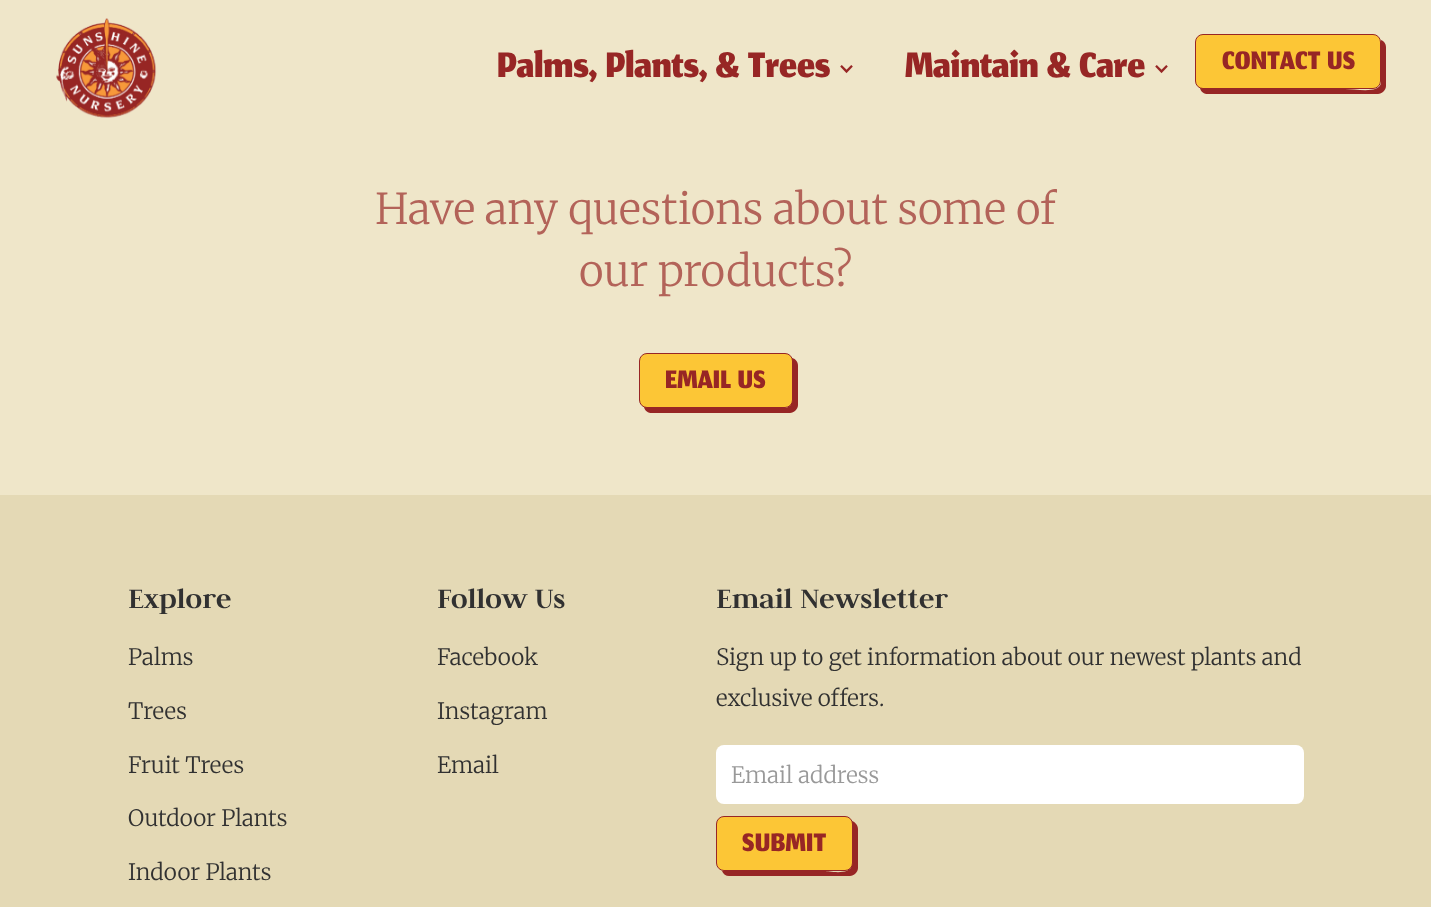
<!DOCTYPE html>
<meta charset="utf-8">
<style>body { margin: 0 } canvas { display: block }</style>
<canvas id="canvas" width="1431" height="907"></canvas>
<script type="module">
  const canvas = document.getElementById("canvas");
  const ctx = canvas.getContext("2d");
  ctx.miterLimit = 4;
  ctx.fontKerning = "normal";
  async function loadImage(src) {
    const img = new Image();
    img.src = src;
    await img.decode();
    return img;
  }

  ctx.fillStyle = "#efe6c9";
  ctx.fillRect(0, 0, 1431, 907);
  ctx.drawImage(await loadImage("img1.png"), 56, 18, 101, 100);
  ctx.font = "62.5px Jomhuria";
  ctx.fillStyle = "#972625";
  ctx.fillText("Palms, Plants, & Trees", 497, 77);
  ctx.drawImage(await loadImage("img2.png"), 840, 65, 13, 9);
  ctx.fillText("Maintain & Care", 905, 77);
  ctx.drawImage(await loadImage("img2.png"), 1155, 65, 13, 9);
  ctx.beginPath();
  ctx.moveTo(1200, 88);
  ctx.bezierCurveTo(1201, 92, 1204, 94, 1208, 94);
  ctx.lineTo(1378, 94);
  ctx.bezierCurveTo(1382, 94, 1386, 90, 1386, 86);
  ctx.lineTo(1386, 47);
  ctx.bezierCurveTo(1386, 44, 1384, 41, 1381, 40);
  ctx.lineTo(1381, 83);
  ctx.bezierCurveTo(1379, 94, 1356, 89, 1345, 89);
  ctx.closePath();
  ctx.fill();
  ctx.fillStyle = "#fcc636";
  ctx.beginPath();
  ctx.roundRect(1195.5, 34.5, 185, 54, 7.5);
  ctx.fill();
  ctx.strokeStyle = "#972625";
  ctx.stroke();
  ctx.letterSpacing = "0.25px";
  ctx.font = "45px Jomhuria";
  ctx.fillStyle = "#972625";
  ctx.fillText("CONTACT US", 1222, 69);
  ctx.letterSpacing = "0px";
  ctx.font = "300 42.5px Merriweather";
  ctx.fillStyle = "#b36359";
  ctx.fillText("Have any questions about some of", 375, 224);
  ctx.fillText("our products?", 579, 286);
  ctx.fillStyle = "#972625";
  ctx.beginPath();
  ctx.moveTo(644, 407);
  ctx.bezierCurveTo(645, 411, 648, 413, 652, 413);
  ctx.lineTo(790, 413);
  ctx.bezierCurveTo(794, 413, 798, 409, 798, 405);
  ctx.lineTo(798, 366);
  ctx.bezierCurveTo(798, 362, 796, 359, 792, 358);
  ctx.lineTo(792, 387);
  ctx.bezierCurveTo(792, 393, 795, 407, 785, 408);
  ctx.closePath();
  ctx.fill();
  ctx.fillStyle = "#fcc636";
  ctx.beginPath();
  ctx.roundRect(639.5, 353.5, 153, 54, 7.5);
  ctx.fill();
  ctx.stroke();
  ctx.letterSpacing = "0.25px";
  ctx.font = "45px Jomhuria";
  ctx.fillStyle = "#972625";
  ctx.fillText("EMAIL US", 665, 388);
  ctx.fillStyle = "#e4d9b5";
  ctx.fillRect(0, 495, 1431, 412);
  ctx.letterSpacing = "0px";
  ctx.font = "bold 31.25px Judson";
  ctx.fillStyle = "#313131";
  ctx.fillText("Explore", 128, 608);
  ctx.font = "300 22.5px Merriweather";
  ctx.fillText("Palms", 128, 665);
  ctx.fillText("Trees", 128, 719);
  ctx.fillText("Fruit Trees", 128, 773);
  ctx.fillText("Outdoor Plants", 128, 826);
  ctx.fillText("Indoor Plants", 128, 880);
  ctx.font = "bold 31.25px Judson";
  ctx.fillText("Follow Us", 437, 608);
  ctx.font = "300 22.5px Merriweather";
  ctx.fillText("Facebook", 437, 665);
  ctx.fillText("Instagram", 437, 719);
  ctx.fillText("Email", 437, 773);
  ctx.font = "bold 31.25px Judson";
  ctx.fillText("Email Newsletter", 716, 608);
  ctx.font = "300 22.5px Merriweather";
  ctx.fillText("Sign up to get information about our newest plants and", 716, 665);
  ctx.fillText("exclusive offers.", 716, 706);
  ctx.fillStyle = "#ffffff";
  ctx.beginPath();
  ctx.roundRect(716, 745, 588, 59, 8);
  ctx.fill();
  ctx.fillStyle = "#999999";
  ctx.fillText("Email address", 731, 783);
  ctx.fillStyle = "#972625";
  ctx.beginPath();
  ctx.moveTo(722, 871);
  ctx.bezierCurveTo(723, 874, 726, 876, 729, 876);
  ctx.lineTo(850, 876);
  ctx.bezierCurveTo(854, 876, 858, 872, 858, 868);
  ctx.lineTo(858, 829);
  ctx.bezierCurveTo(858, 825, 855, 822, 852, 821);
  ctx.lineTo(852, 830);
  ctx.lineTo(852, 865);
  ctx.bezierCurveTo(850, 876, 828, 871, 825, 871);
  ctx.closePath();
  ctx.fill();
  ctx.fillStyle = "#fcc636";
  ctx.beginPath();
  ctx.roundRect(716.5, 816.5, 136, 54, 7.5);
  ctx.fill();
  ctx.stroke();
  ctx.letterSpacing = "0.25px";
  ctx.font = "45px Jomhuria";
  ctx.fillStyle = "#972625";
  ctx.fillText("SUBMIT", 742, 851);
</script>
